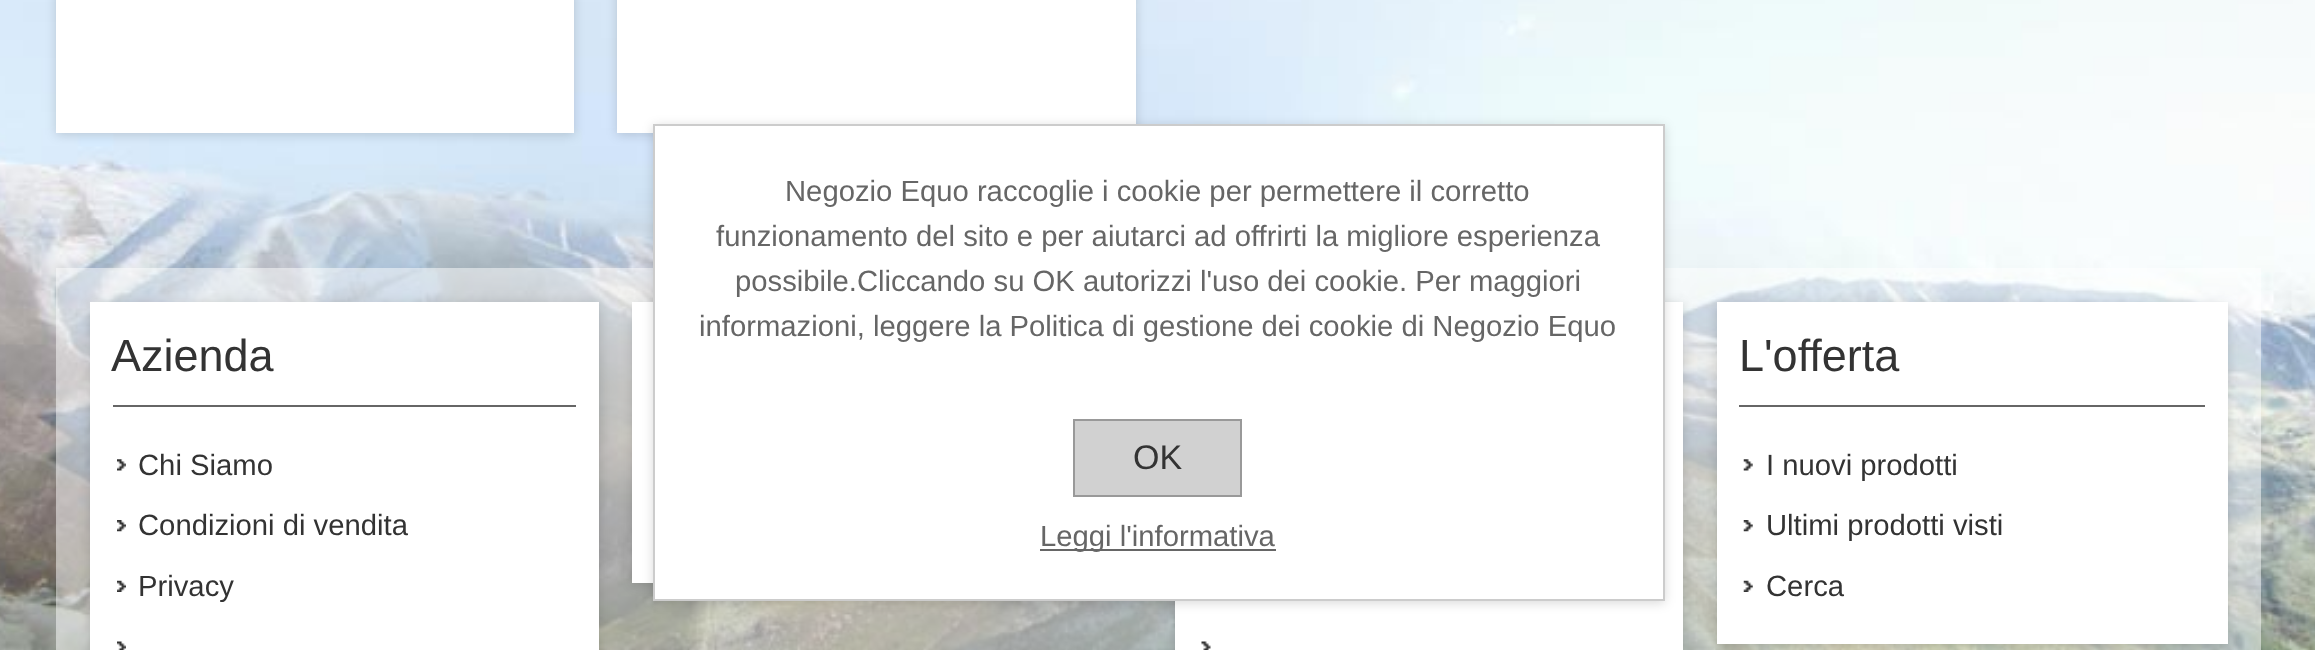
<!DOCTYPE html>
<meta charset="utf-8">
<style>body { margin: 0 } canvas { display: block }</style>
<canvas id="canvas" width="2315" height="650"></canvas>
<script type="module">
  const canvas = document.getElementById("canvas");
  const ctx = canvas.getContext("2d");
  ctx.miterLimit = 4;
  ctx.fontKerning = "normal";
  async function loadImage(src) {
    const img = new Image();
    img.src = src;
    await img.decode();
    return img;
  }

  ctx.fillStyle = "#ffffff";
  ctx.fillRect(0, 0, 2315, 650);
  ctx.drawImage(await loadImage("img1.png"), 0, 0, 2315, 650);
  ctx.fillStyle = "rgba(0, 0, 0, 0.15)";
  ctx.filter = "blur(5.5px)";
  ctx.beginPath();
  ctx.rect(617, -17, 519, 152);
  ctx.fill();
  ctx.filter = "none";
  ctx.fillStyle = "#ffffff";
  ctx.fillRect(617, 0, 519, 133);
  ctx.fillStyle = "rgba(255, 255, 255, 0.5)";
  ctx.fillRect(56, 268, 2205, 382);
  ctx.fillStyle = "rgba(0, 0, 0, 0.15)";
  ctx.filter = "blur(5.5px)";
  ctx.beginPath();
  ctx.rect(632, 304, 509, 281);
  ctx.fill();
  ctx.filter = "none";
  ctx.fillStyle = "#ffffff";
  ctx.fillRect(632, 302, 21, 281);
  ctx.fillStyle = "rgba(0, 0, 0, 0.15)";
  ctx.filter = "blur(5.5px)";
  ctx.beginPath();
  ctx.rect(1175, 304, 508, 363);
  ctx.fill();
  ctx.filter = "none";
  ctx.fillStyle = "#ffffff";
  ctx.fillRect(1175, 302, 508, 348);
  ctx.fillStyle = "rgba(0, 0, 0, 0.15)";
  ctx.filter = "blur(5.5px)";
  ctx.beginPath();
  ctx.rect(653, 126, 1012, 477);
  ctx.fill();
  ctx.filter = "none";
  ctx.fillStyle = "#ffffff";
  ctx.beginPath();
  ctx.rect(654, 125, 1010, 475);
  ctx.fill();
  ctx.strokeStyle = "#cccccc";
  ctx.lineWidth = 2;
  ctx.stroke();
  ctx.font = "29.25px Liberation Sans";
  ctx.fillStyle = "#666666";
  ctx.fillText("Negozio Equo raccoglie i cookie per permettere il corretto", 785, 201);
  ctx.fillText("funzionamento del sito e per aiutarci ad offrirti la migliore esperienza", 716, 246);
  ctx.fillText("possibile.Cliccando su OK autorizzi l'uso dei cookie. Per maggiori", 735, 291);
  ctx.fillText("informazioni, leggere la Politica di gestione dei cookie di Negozio Equo", 699, 336);
  ctx.fillStyle = "#d1d1d1";
  ctx.beginPath();
  ctx.rect(1074, 420, 167, 76);
  ctx.fill();
  ctx.strokeStyle = "#999999";
  ctx.stroke();
  ctx.font = "34px Liberation Sans";
  ctx.fillStyle = "#333333";
  ctx.fillText("OK", 1133, 469);
  ctx.fillStyle = "#666666";
  ctx.fillRect(1040, 549, 236, 2);
  ctx.font = "29.25px Liberation Sans";
  ctx.fillText("Leggi l'informativa", 1040, 546);
  ctx.fillStyle = "rgba(0, 0, 0, 0.15)";
  ctx.filter = "blur(5.5px)";
  ctx.beginPath();
  ctx.rect(56, -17, 518, 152);
  ctx.fill();
  ctx.filter = "none";
  ctx.fillStyle = "#ffffff";
  ctx.fillRect(56, 0, 518, 133);
  ctx.fillStyle = "rgba(0, 0, 0, 0.15)";
  ctx.filter = "blur(5.5px)";
  ctx.beginPath();
  ctx.rect(90, 304, 509, 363);
  ctx.fill();
  ctx.filter = "none";
  ctx.fillStyle = "#ffffff";
  ctx.fillRect(90, 302, 509, 348);
  ctx.fillStyle = "#666666";
  ctx.fillRect(113, 405, 463, 2);
  ctx.font = "45px Liberation Sans";
  ctx.fillStyle = "#333333";
  ctx.fillText("Azienda", 111, 371);
  ctx.drawImage(await loadImage("img2.png"), 117, 459, 9, 12);
  ctx.font = "29.25px Liberation Sans";
  ctx.fillText("Chi Siamo", 138, 475);
  ctx.drawImage(await loadImage("img3.png"), 117, 520, 9, 12);
  ctx.fillText("Condizioni di vendita", 138, 535);
  ctx.drawImage(await loadImage("img4.png"), 117, 580, 9, 12);
  ctx.fillText("Privacy", 138, 596);
  ctx.drawImage(await loadImage("img5.png"), 117, 641, 9, 9);
  ctx.drawImage(await loadImage("img6.png"), 1201, 641, 10, 9);
  ctx.fillStyle = "rgba(0, 0, 0, 0.15)";
  ctx.filter = "blur(5.5px)";
  ctx.beginPath();
  ctx.rect(1717, 304, 511, 342);
  ctx.fill();
  ctx.filter = "none";
  ctx.fillStyle = "#ffffff";
  ctx.fillRect(1717, 302, 511, 342);
  ctx.fillStyle = "#666666";
  ctx.fillRect(1739, 405, 466, 2);
  ctx.font = "45px Liberation Sans";
  ctx.fillStyle = "#333333";
  ctx.fillText("L'offerta", 1739, 371);
  ctx.drawImage(await loadImage("img7.png"), 1743, 459, 10, 12);
  ctx.font = "29.25px Liberation Sans";
  ctx.fillText("I nuovi prodotti", 1766, 475);
  ctx.drawImage(await loadImage("img8.png"), 1743, 520, 10, 12);
  ctx.fillText("Ultimi prodotti visti", 1766, 535);
  ctx.drawImage(await loadImage("img9.png"), 1743, 580, 10, 12);
  ctx.fillText("Cerca", 1766, 596);
</script>
